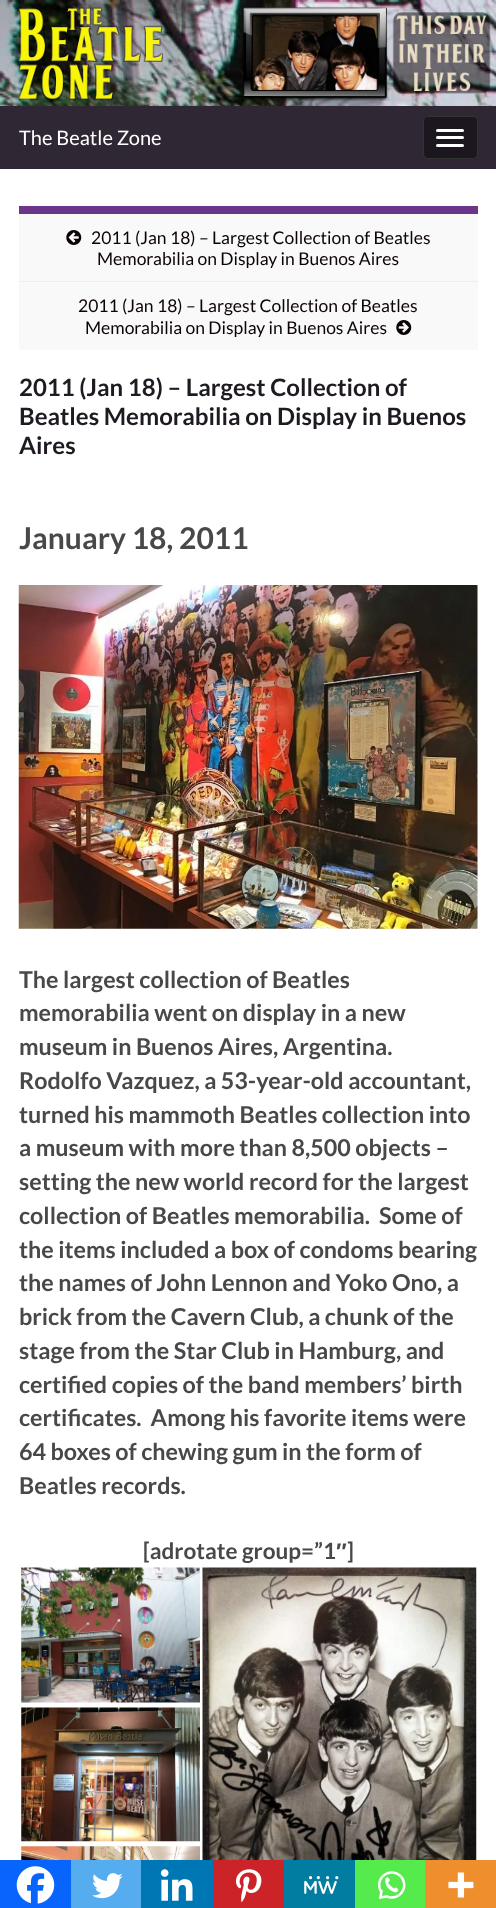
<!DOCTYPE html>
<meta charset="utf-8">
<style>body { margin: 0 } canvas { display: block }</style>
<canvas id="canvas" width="496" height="1908"></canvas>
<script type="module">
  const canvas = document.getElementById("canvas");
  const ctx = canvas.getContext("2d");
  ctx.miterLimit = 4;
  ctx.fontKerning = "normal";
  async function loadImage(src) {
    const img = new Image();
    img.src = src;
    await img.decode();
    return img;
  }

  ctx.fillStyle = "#ffffff";
  ctx.fillRect(0, 0, 496, 1908);
  ctx.drawImage(await loadImage("img1.png"), 0, 0, 496, 106);
  ctx.drawImage(await loadImage("img2.png"), 18, 6, 473, 95);
  ctx.fillStyle = "#2f2733";
  ctx.fillRect(0, 106, 496, 63);
  ctx.font = "20px Lato";
  ctx.fillStyle = "#ffffff";
  ctx.fillText("The Beatle Zone", 19, 145);
  ctx.fillStyle = "#1c171f";
  ctx.beginPath();
  ctx.roundRect(423.5, 116.5, 54, 42, 4.5);
  ctx.fill();
  ctx.strokeStyle = "#333333";
  ctx.stroke();
  ctx.fillStyle = "#ffffff";
  ctx.beginPath();
  ctx.roundRect(436, 129, 28, 3, 1.5);
  ctx.fill();
  ctx.beginPath();
  ctx.roundRect(436, 136, 28, 3, 1.5);
  ctx.fill();
  ctx.beginPath();
  ctx.roundRect(436, 144, 28, 3, 1.5);
  ctx.fill();
  ctx.fillStyle = "#f9f9f9";
  ctx.fillRect(19, 214, 459, 136);
  ctx.fillStyle = "#6b3589";
  ctx.fillRect(19, 206, 459, 8);
  ctx.drawImage(await loadImage("img3.png"), 66, 230, 16, 15);
  ctx.font = "17.5px Lato";
  ctx.fillStyle = "#0c0305";
  ctx.fillText("2011 (Jan 18) – Largest Collection of Beatles", 91, 244);
  ctx.fillText("Memorabilia on Display in Buenos Aires", 97, 265);
  ctx.fillStyle = "#eeeeee";
  ctx.fillRect(19, 281, 459, 1);
  ctx.fillStyle = "#0c0305";
  ctx.fillText("2011 (Jan 18) – Largest Collection of Beatles", 78, 312);
  ctx.fillText("Memorabilia on Display in Buenos Aires", 85, 334);
  ctx.drawImage(await loadImage("img4.png"), 396, 320, 16, 15);
  ctx.font = "bold 24px Lato";
  ctx.fillStyle = "#1f1a22";
  ctx.fillText("2011 (Jan 18) – Largest Collection of", 19, 396);
  ctx.fillText("Beatles Memorabilia on Display in Buenos", 19, 425);
  ctx.fillText("Aires", 19, 454);
  ctx.font = "bold 30px Lato";
  ctx.fillStyle = "#4a474b";
  ctx.fillText("January 18, 2011", 19, 549);
  ctx.drawImage(await loadImage("img5.png"), 18, 585, 460, 344);
  ctx.font = "bold 23.3px Lato";
  ctx.fillText("The largest collection of Beatles", 19, 988);
  ctx.fillText("memorabilia went on display in a new", 19, 1021);
  ctx.fillText("museum in Buenos Aires, Argentina.", 19, 1055);
  ctx.fillText("Rodolfo Vazquez, a 53-year-old accountant,", 19, 1089);
  ctx.fillText("turned his mammoth Beatles collection into", 19, 1123);
  ctx.fillText("a museum with more than 8,500 objects –", 19, 1156);
  ctx.fillText("setting the new world record for the largest", 19, 1190);
  ctx.fillText("collection of Beatles memorabilia.  Some of", 19, 1224);
  ctx.fillText("the items included a box of condoms bearing", 19, 1258);
  ctx.fillText("the names of John Lennon and Yoko Ono, a", 19, 1291);
  ctx.fillText("brick from the Cavern Club, a chunk of the", 19, 1325);
  ctx.fillText("stage from the Star Club in Hamburg, and", 19, 1359);
  ctx.fillText("certified copies of the band members’ birth", 19, 1393);
  ctx.fillText("certificates.  Among his favorite items were", 19, 1426);
  ctx.fillText("64 boxes of chewing gum in the form of", 19, 1460);
  ctx.fillText("Beatles records.", 19, 1494);
  ctx.font = "bold 22.5px Lato";
  ctx.fillText("[adrotate group=”1", 143, 1559);
  ctx.font = "bold 22.5px Liberation Sans";
  ctx.fillText("″", 336, 1559);
  ctx.font = "bold 22.5px Lato";
  ctx.fillText("]", 347, 1559);
  ctx.drawImage(await loadImage("img6.png"), 21, 1567, 179, 136);
  ctx.drawImage(await loadImage("img7.png"), 21, 1707, 179, 135);
  ctx.drawImage(await loadImage("img8.png"), 21, 1846, 179, 14);
  ctx.drawImage(await loadImage("img9.png"), 202, 1567, 275, 293);
  ctx.fillStyle = "#0765fe";
  ctx.fillRect(0, 1860, 71, 48);
  ctx.drawImage(await loadImage("img10.png"), 16, 1866, 39, 38);
  ctx.fillStyle = "#55acee";
  ctx.fillRect(71, 1860, 70, 48);
  ctx.drawImage(await loadImage("img11.png"), 92, 1873, 31, 26);
  ctx.fillStyle = "#0077b5";
  ctx.fillRect(141, 1860, 72, 48);
  ctx.drawImage(await loadImage("img12.png"), 160, 1869, 33, 32);
  ctx.fillStyle = "#cc2329";
  ctx.fillRect(213, 1860, 71, 48);
  ctx.drawImage(await loadImage("img13.png"), 235, 1869, 27, 34);
  ctx.fillStyle = "#007da1";
  ctx.fillRect(284, 1860, 71, 48);
  ctx.drawImage(await loadImage("img14.png"), 304, 1876, 35, 18);
  ctx.fillStyle = "#55eb4c";
  ctx.fillRect(355, 1860, 70, 48);
  ctx.drawImage(await loadImage("img15.png"), 378, 1871, 28, 28);
  ctx.fillStyle = "#ee8e2d";
  ctx.fillRect(425, 1860, 71, 48);
  ctx.drawImage(await loadImage("img16.png"), 448, 1872, 26, 26);
</script>
